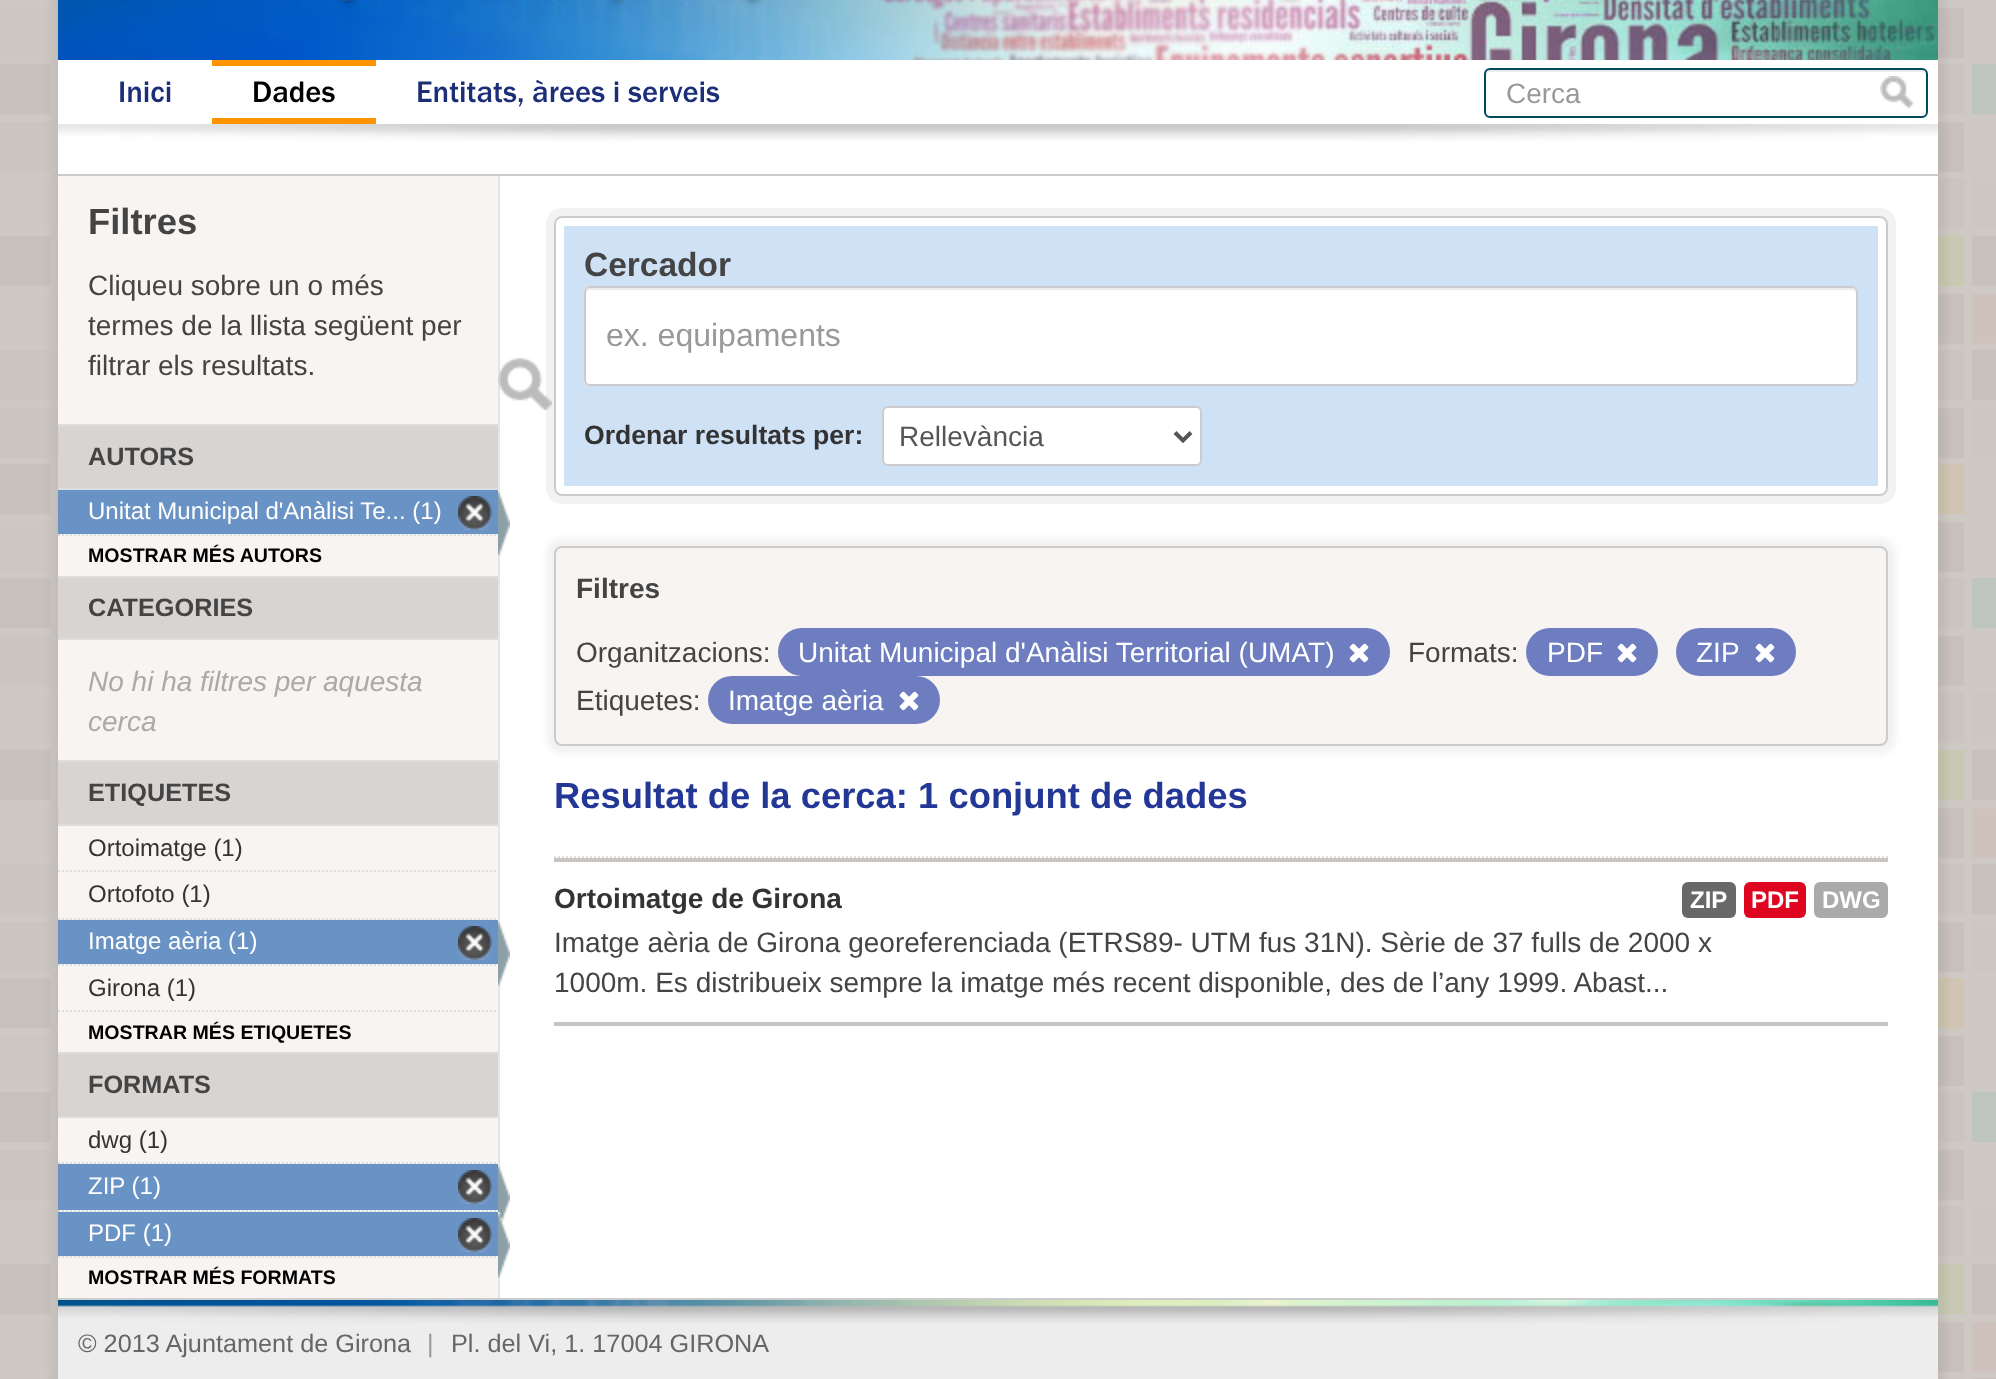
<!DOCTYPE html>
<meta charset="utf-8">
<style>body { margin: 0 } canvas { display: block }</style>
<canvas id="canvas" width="1996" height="1379"></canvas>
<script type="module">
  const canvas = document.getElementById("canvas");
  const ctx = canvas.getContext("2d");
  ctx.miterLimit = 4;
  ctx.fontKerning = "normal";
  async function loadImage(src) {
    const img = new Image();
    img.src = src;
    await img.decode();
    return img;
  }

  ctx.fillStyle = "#ffffff";
  ctx.fillRect(0, 0, 1996, 1379);
  ctx.drawImage(await loadImage("img1.png"), 0, 0, 1996, 1379);
  ctx.fillStyle = "rgba(0, 0, 0, 0.05)";
  ctx.filter = "blur(3px)";
  ctx.beginPath();
  ctx.rect(50, -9, 1896, 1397);
  ctx.fill();
  ctx.filter = "none";
  ctx.fillStyle = "#ffffff";
  ctx.fillRect(58, 60, 1880, 1238);
  ctx.drawImage(await loadImage("img2.png"), 58, 0, 1880, 60);
  ctx.drawImage(await loadImage("img3.png"), 58, 124, 1880, 17);
  ctx.font = "500 30.75px Franklin Gothic";
  ctx.fillStyle = "#1c2e78";
  ctx.fillText("Inici", 118, 102);
  ctx.fillStyle = "#ff9400";
  ctx.fillRect(212, 60, 164, 6);
  ctx.fillRect(212, 118, 164, 6);
  ctx.fillStyle = "#000000";
  ctx.fillText("Dades", 252, 102);
  ctx.fillStyle = "#1c2e78";
  ctx.fillText("Entitats, àrees i serveis", 416, 102);
  ctx.fillStyle = "#ececec";
  ctx.beginPath();
  ctx.moveTo(1490, 72);
  ctx.lineTo(1922, 72);
  ctx.bezierCurveTo(1924, 72, 1926, 74, 1926, 76);
  ctx.lineTo(1926, 74);
  ctx.bezierCurveTo(1926, 72, 1924, 70, 1922, 70);
  ctx.lineTo(1490, 70);
  ctx.bezierCurveTo(1488, 70, 1486, 72, 1486, 74);
  ctx.lineTo(1486, 76);
  ctx.bezierCurveTo(1486, 74, 1488, 72, 1490, 72);
  ctx.closePath();
  ctx.fill();
  ctx.beginPath();
  ctx.roundRect(1485, 69, 442, 48, 5);
  ctx.strokeStyle = "#004a61";
  ctx.lineWidth = 2;
  ctx.stroke();
  ctx.font = "28px Liberation Sans";
  ctx.fillStyle = "#999999";
  ctx.fillText("Cerca", 1506, 103);
  ctx.drawImage(await loadImage("img4.png"), 1880, 76, 34, 33);
  ctx.fillStyle = "#e5e5e5";
  ctx.fillRect(498, 174, 2, 1126);
  ctx.fillStyle = "#cccccc";
  ctx.fillRect(58, 174, 1880, 2);
  ctx.fillRect(58, 1298, 1880, 2);
  ctx.fillStyle = "#f7f4f2";
  ctx.fillRect(58, 176, 440, 1122);
  ctx.font = "bold 36.4px Liberation Sans";
  ctx.fillStyle = "#444444";
  ctx.fillText("Filtres", 88, 234);
  ctx.font = "28px Liberation Sans";
  ctx.fillText("Cliqueu sobre un o més", 88, 295);
  ctx.fillText("termes de la llista següent per", 88, 335);
  ctx.fillText("filtrar els resultats.", 88, 375);
  ctx.fillStyle = "#d7d4d2";
  ctx.fillRect(58, 426, 440, 62);
  ctx.fillStyle = "#dddddd";
  ctx.fillRect(58, 424, 440, 2);
  ctx.fillRect(58, 488, 440, 2);
  ctx.font = "bold 25.25px Liberation Sans";
  ctx.fillStyle = "#444444";
  ctx.fillText("AUTORS", 88, 465);
  ctx.fillStyle = "#6992c5";
  ctx.fillRect(58, 490, 440, 44);
  ctx.font = "24px Liberation Sans";
  ctx.fillStyle = "#ffffff";
  ctx.fillText("Unitat Municipal d'Anàlisi Te... (1)", 88, 519);
  ctx.drawImage(await loadImage("img5.png"), 458, 496, 34, 34);
  ctx.drawImage(await loadImage("img6.png"), 498, 490, 12, 68);
  ctx.beginPath();
  ctx.moveTo(58, 535);
  ctx.lineTo(498, 535);
  ctx.strokeStyle = "#dddddd";
  ctx.setLineDash([2, 2]);
  ctx.stroke();
  ctx.font = "bold 19.6px Liberation Sans";
  ctx.fillStyle = "#000000";
  ctx.fillText("MOSTRAR MÉS AUTORS", 88, 562);
  ctx.fillStyle = "#d7d4d2";
  ctx.fillRect(58, 578, 440, 60);
  ctx.fillStyle = "#dddddd";
  ctx.fillRect(58, 576, 440, 2);
  ctx.fillRect(58, 638, 440, 2);
  ctx.font = "bold 25.25px Liberation Sans";
  ctx.fillStyle = "#444444";
  ctx.fillText("CATEGORIES", 88, 616);
  ctx.font = "italic 28px Liberation Sans";
  ctx.fillStyle = "#aaaaaa";
  ctx.fillText("No hi ha filtres per aquesta", 88, 691);
  ctx.fillText("cerca", 88, 731);
  ctx.fillStyle = "#d7d4d2";
  ctx.fillRect(58, 762, 440, 62);
  ctx.fillStyle = "#dddddd";
  ctx.fillRect(58, 760, 440, 2);
  ctx.fillRect(58, 824, 440, 2);
  ctx.font = "bold 25.25px Liberation Sans";
  ctx.fillStyle = "#444444";
  ctx.fillText("ETIQUETES", 88, 801);
  ctx.beginPath();
  ctx.moveTo(58, 871);
  ctx.lineTo(498, 871);
  ctx.stroke();
  ctx.font = "24px Liberation Sans";
  ctx.fillStyle = "#333333";
  ctx.fillText("Ortoimatge (1)", 88, 856);
  ctx.beginPath();
  ctx.moveTo(58, 919);
  ctx.lineTo(498, 919);
  ctx.stroke();
  ctx.fillText("Ortofoto (1)", 88, 902);
  ctx.fillStyle = "#f6f6f6";
  ctx.fillRect(60, 964, 438, 2);
  ctx.beginPath();
  ctx.moveTo(58, 965);
  ctx.lineTo(498, 965);
  ctx.stroke();
  ctx.fillStyle = "#6992c5";
  ctx.fillRect(58, 920, 440, 44);
  ctx.fillStyle = "#ffffff";
  ctx.fillText("Imatge aèria (1)", 88, 949);
  ctx.drawImage(await loadImage("img5.png"), 458, 926, 34, 34);
  ctx.drawImage(await loadImage("img6.png"), 498, 920, 12, 68);
  ctx.fillStyle = "#333333";
  ctx.fillText("Girona (1)", 88, 996);
  ctx.beginPath();
  ctx.moveTo(58, 1011);
  ctx.lineTo(498, 1011);
  ctx.stroke();
  ctx.font = "bold 19.6px Liberation Sans";
  ctx.fillStyle = "#000000";
  ctx.fillText("MOSTRAR MÉS ETIQUETES", 88, 1039);
  ctx.fillStyle = "#d7d4d2";
  ctx.fillRect(58, 1054, 440, 62);
  ctx.fillStyle = "#dddddd";
  ctx.fillRect(58, 1052, 440, 2);
  ctx.fillRect(58, 1116, 440, 2);
  ctx.font = "bold 25.25px Liberation Sans";
  ctx.fillStyle = "#444444";
  ctx.fillText("FORMATS", 88, 1093);
  ctx.beginPath();
  ctx.moveTo(58, 1163);
  ctx.lineTo(498, 1163);
  ctx.stroke();
  ctx.font = "24px Liberation Sans";
  ctx.fillStyle = "#333333";
  ctx.fillText("dwg (1)", 88, 1148);
  ctx.fillStyle = "#f6f6f6";
  ctx.fillRect(60, 1210, 438, 2);
  ctx.beginPath();
  ctx.moveTo(58, 1211);
  ctx.lineTo(498, 1211);
  ctx.stroke();
  ctx.fillStyle = "#6992c5";
  ctx.fillRect(58, 1164, 440, 46);
  ctx.fillStyle = "#ffffff";
  ctx.fillText("ZIP (1)", 88, 1194);
  ctx.drawImage(await loadImage("img5.png"), 458, 1170, 34, 34);
  ctx.drawImage(await loadImage("img7.png"), 498, 1164, 12, 59);
  ctx.fillStyle = "#6992c5";
  ctx.fillRect(58, 1212, 440, 44);
  ctx.fillStyle = "#ffffff";
  ctx.fillText("PDF (1)", 88, 1241);
  ctx.drawImage(await loadImage("img5.png"), 458, 1218, 34, 34);
  ctx.drawImage(await loadImage("img8.png"), 498, 1212, 12, 68);
  ctx.beginPath();
  ctx.moveTo(58, 1257);
  ctx.lineTo(498, 1257);
  ctx.stroke();
  ctx.font = "bold 19.6px Liberation Sans";
  ctx.fillStyle = "#000000";
  ctx.fillText("MOSTRAR MÉS FORMATS", 88, 1284);
  ctx.beginPath();
  ctx.roundRect(550, 212, 1342, 288, 12);
  ctx.strokeStyle = "#f2f2f2";
  ctx.lineWidth = 8;
  ctx.setLineDash([]);
  ctx.stroke();
  ctx.fillStyle = "#ffffff";
  ctx.beginPath();
  ctx.roundRect(555, 217, 1332, 278, 7);
  ctx.fill();
  ctx.strokeStyle = "#cccccc";
  ctx.lineWidth = 2;
  ctx.stroke();
  ctx.fillStyle = "#cfe1f5";
  ctx.fillRect(564, 226, 1314, 260);
  ctx.font = "bold 33.5px Liberation Sans";
  ctx.fillStyle = "#444444";
  ctx.fillText("Cercador", 584, 276);
  ctx.fillStyle = "#ffffff";
  ctx.beginPath();
  ctx.roundRect(584, 286, 1274, 100, 6);
  ctx.fill();
  ctx.fillStyle = "#ececec";
  ctx.beginPath();
  ctx.moveTo(590, 290);
  ctx.lineTo(1852, 290);
  ctx.bezierCurveTo(1854, 290, 1856, 292, 1856, 294);
  ctx.bezierCurveTo(1856, 291, 1856, 288, 1852, 288);
  ctx.lineTo(590, 288);
  ctx.bezierCurveTo(586, 288, 586, 291, 586, 294);
  ctx.bezierCurveTo(586, 292, 588, 290, 590, 290);
  ctx.closePath();
  ctx.fill();
  ctx.beginPath();
  ctx.roundRect(585, 287, 1272, 98, 5);
  ctx.stroke();
  ctx.font = "32px Liberation Sans";
  ctx.fillStyle = "#999999";
  ctx.fillText("ex. equipaments", 606, 346);
  ctx.drawImage(await loadImage("img9.png"), 498, 358, 54, 52);
  ctx.font = "bold 26.6px Liberation Sans";
  ctx.fillStyle = "#333333";
  ctx.fillText("Ordenar resultats per:", 584, 444);
  ctx.fillStyle = "#ffffff";
  ctx.beginPath();
  ctx.roundRect(883, 407, 318, 58, 5);
  ctx.fill();
  ctx.stroke();
  ctx.beginPath();
  ctx.moveTo(1175, 432.5);
  ctx.lineTo(1183, 440.5);
  ctx.lineTo(1191, 432.5);
  ctx.strokeStyle = "#555555";
  ctx.lineWidth = 4;
  ctx.stroke();
  ctx.font = "28px Liberation Sans";
  ctx.fillStyle = "#555555";
  ctx.fillText("Rellevància", 899, 446);
  ctx.beginPath();
  ctx.moveTo(554, 857);
  ctx.lineTo(1888, 857);
  ctx.strokeStyle = "#dddddd";
  ctx.lineWidth = 2;
  ctx.setLineDash([2, 2]);
  ctx.stroke();
  ctx.fillStyle = "rgba(0, 0, 0, 0.05)";
  ctx.filter = "blur(3px)";
  ctx.beginPath();
  ctx.roundRect(546, 538, 1350, 216, 16);
  ctx.fill();
  ctx.filter = "none";
  ctx.fillStyle = "#f7f4f2";
  ctx.beginPath();
  ctx.roundRect(555, 547, 1332, 198, 7);
  ctx.fill();
  ctx.strokeStyle = "#cccccc";
  ctx.setLineDash([]);
  ctx.stroke();
  ctx.font = "bold 28px Liberation Sans";
  ctx.fillStyle = "#444444";
  ctx.fillText("Filtres", 576, 598);
  ctx.font = "28px Liberation Sans";
  ctx.fillText("Organitzacions:", 576, 662);
  ctx.fillStyle = "#6d7dbf";
  ctx.beginPath();
  ctx.roundRect(778, 628, 612, 48, 24);
  ctx.fill();
  ctx.fillStyle = "#ffffff";
  ctx.fillText("Unitat Municipal d'Anàlisi Territorial (UMAT)", 798, 662);
  ctx.drawImage(await loadImage("img10.png"), 1349, 643, 20, 20);
  ctx.fillStyle = "#444444";
  ctx.fillText("Formats:", 1408, 662);
  ctx.fillStyle = "#6d7dbf";
  ctx.beginPath();
  ctx.roundRect(1526, 628, 132, 48, 24);
  ctx.fill();
  ctx.fillStyle = "#ffffff";
  ctx.fillText("PDF", 1547, 662);
  ctx.drawImage(await loadImage("img10.png"), 1617, 643, 20, 20);
  ctx.fillStyle = "#6d7dbf";
  ctx.beginPath();
  ctx.roundRect(1676, 628, 120, 48, 24);
  ctx.fill();
  ctx.fillStyle = "#ffffff";
  ctx.fillText("ZIP", 1696, 662);
  ctx.drawImage(await loadImage("img10.png"), 1755, 643, 20, 20);
  ctx.fillStyle = "#444444";
  ctx.fillText("Etiquetes:", 576, 710);
  ctx.fillStyle = "#6d7dbf";
  ctx.beginPath();
  ctx.roundRect(708, 676, 232, 48, 24);
  ctx.fill();
  ctx.fillStyle = "#ffffff";
  ctx.fillText("Imatge aèria", 728, 710);
  ctx.drawImage(await loadImage("img10.png"), 899, 691, 20, 20);
  ctx.font = "bold 36.4px Liberation Sans";
  ctx.fillStyle = "#233896";
  ctx.fillText("Resultat de la cerca: 1 conjunt de dades", 554, 808);
  ctx.fillStyle = "#c7c4c2";
  ctx.fillRect(554, 1022, 1334, 4);
  ctx.fillRect(554, 858, 1334, 4);
  ctx.font = "bold 28px Liberation Sans";
  ctx.fillStyle = "#333333";
  ctx.fillText("Ortoimatge de Girona", 554, 908);
  ctx.font = "28px Liberation Sans";
  ctx.fillStyle = "#444444";
  ctx.fillText("Imatge aèria de Girona georeferenciada (ETRS89- UTM fus 31N). Sèrie de 37 fulls de 2000 x", 554, 952);
  ctx.fillText("1000m. Es distribueix sempre la imatge més recent disponible, des de l’any 1999. Abast...", 554, 992);
  ctx.fillStyle = "#686868";
  ctx.beginPath();
  ctx.roundRect(1682, 882, 54, 36, 6);
  ctx.fill();
  ctx.font = "bold 24px Liberation Sans";
  ctx.fillStyle = "#ffffff";
  ctx.fillText("ZIP", 1690, 908);
  ctx.fillStyle = "#e0051e";
  ctx.beginPath();
  ctx.roundRect(1744, 882, 62, 36, 6);
  ctx.fill();
  ctx.fillStyle = "#ffffff";
  ctx.fillText("PDF", 1751, 908);
  ctx.fillStyle = "#aaaaaa";
  ctx.beginPath();
  ctx.roundRect(1814, 882, 74, 36, 6);
  ctx.fill();
  ctx.fillStyle = "#ffffff";
  ctx.fillText("DWG", 1822, 908);
  ctx.fillStyle = "#ededed";
  ctx.fillRect(58, 1324, 1880, 55);
  ctx.drawImage(await loadImage("img11.png"), 58, 1300, 1880, 24);
  ctx.font = "25.25px Liberation Sans";
  ctx.fillStyle = "#666666";
  ctx.fillText("© 2013 Ajuntament de Girona", 78, 1352);
  ctx.fillStyle = "#999999";
  ctx.fillText("|", 427, 1352);
  ctx.fillStyle = "#666666";
  ctx.fillText("Pl. del Vi, 1. 17004 GIRONA", 451, 1352);
</script>
